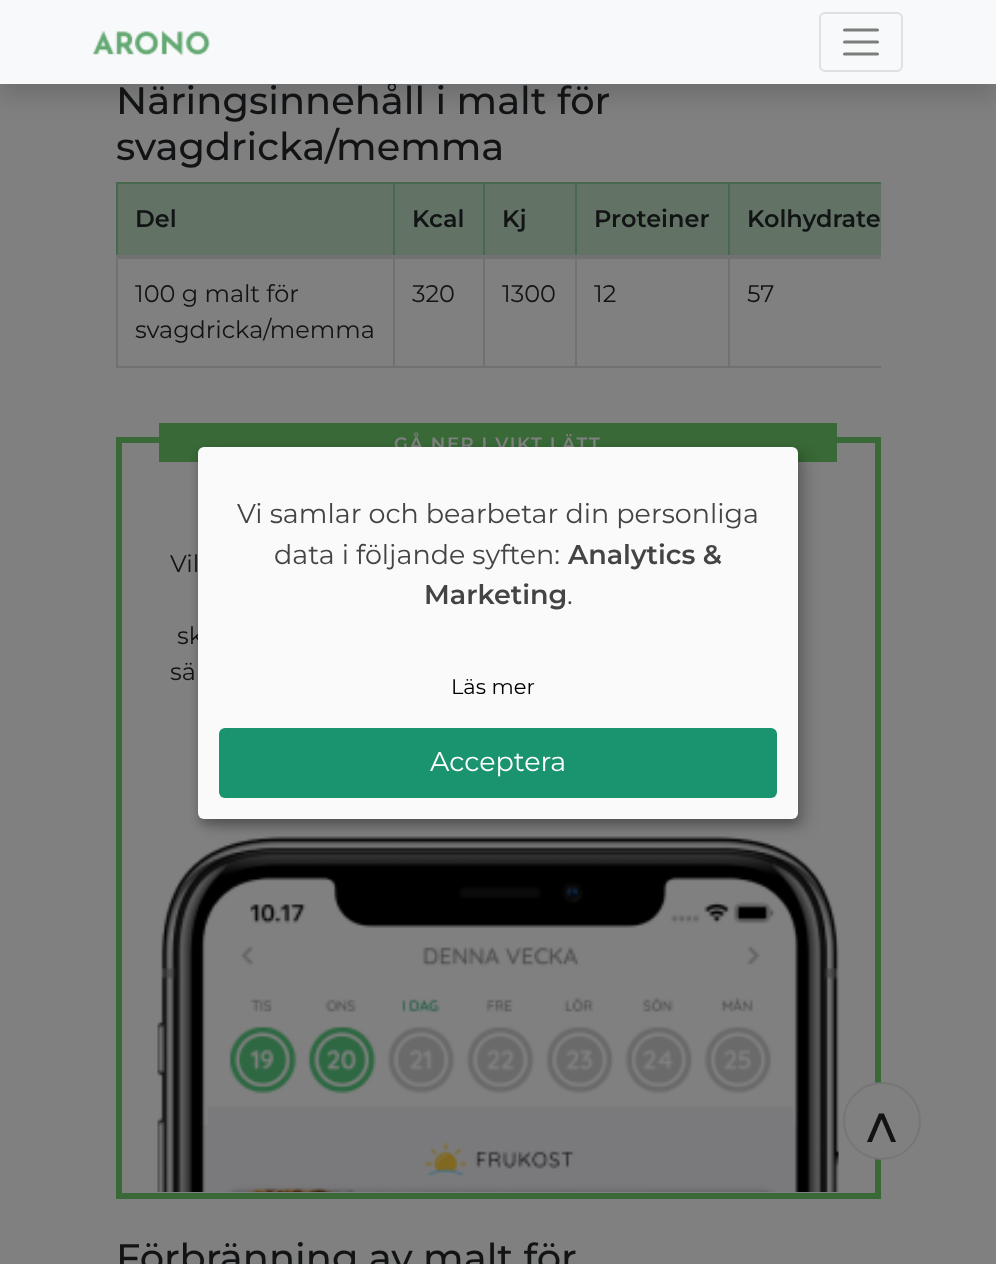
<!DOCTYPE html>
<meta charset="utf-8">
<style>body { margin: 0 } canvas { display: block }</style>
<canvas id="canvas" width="996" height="1264"></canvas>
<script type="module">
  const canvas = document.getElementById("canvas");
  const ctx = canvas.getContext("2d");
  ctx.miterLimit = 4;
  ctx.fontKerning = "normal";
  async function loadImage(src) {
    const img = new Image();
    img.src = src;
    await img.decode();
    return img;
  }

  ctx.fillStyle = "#808080";
  ctx.fillRect(0, 0, 996, 1264);
  ctx.fillStyle = "rgba(0, 0, 0, 0.15)";
  ctx.filter = "blur(12px)";
  ctx.beginPath();
  ctx.rect(0, 12, 996, 84);
  ctx.fill();
  ctx.filter = "none";
  ctx.font = "500 38.4px Montserrat";
  ctx.fillStyle = "#111315";
  ctx.fillText("Näringsinnehåll i malt för", 116, 114);
  ctx.fillStyle = "#f8f9fa";
  ctx.fillRect(0, 0, 996, 84);
  ctx.drawImage(await loadImage("img1.png"), 93, 30, 117, 26);
  ctx.beginPath();
  ctx.roundRect(820, 13, 82, 58, 5);
  ctx.strokeStyle = "#dfe0e1";
  ctx.lineWidth = 2;
  ctx.stroke();
  ctx.beginPath();
  ctx.moveTo(844.5, 30);
  ctx.lineTo(877.5, 30);
  ctx.moveTo(844.5, 42);
  ctx.lineTo(877.5, 42);
  ctx.moveTo(844.5, 54);
  ctx.lineTo(877.5, 54);
  ctx.strokeStyle = "#7c7d7d";
  ctx.lineWidth = 3;
  ctx.lineCap = "round";
  ctx.stroke();
  ctx.fillStyle = "#111315";
  ctx.fillText("svagdricka/memma", 116, 160);
  ctx.fillStyle = "#627366";
  ctx.fillRect(118, 184, 763, 71);
  ctx.fillStyle = "#48694f";
  ctx.fillRect(728, 182, 153, 2);
  ctx.fillStyle = "#6f7173";
  ctx.fillRect(728, 258, 153, 1);
  ctx.fillRect(728, 366, 153, 2);
  ctx.fillRect(728, 257, 2, 111);
  ctx.fillStyle = "#48694f";
  ctx.fillRect(728, 182, 2, 76);
  ctx.fillRect(575, 182, 154, 2);
  ctx.fillStyle = "#6f7173";
  ctx.fillRect(575, 258, 154, 1);
  ctx.fillRect(575, 366, 154, 2);
  ctx.fillRect(575, 257, 2, 111);
  ctx.fillStyle = "#48694f";
  ctx.fillRect(575, 182, 2, 76);
  ctx.fillRect(483, 182, 93, 2);
  ctx.fillStyle = "#6f7173";
  ctx.fillRect(483, 258, 93, 1);
  ctx.fillRect(483, 366, 93, 2);
  ctx.fillRect(483, 257, 2, 111);
  ctx.fillStyle = "#48694f";
  ctx.fillRect(483, 182, 2, 76);
  ctx.fillRect(393, 182, 92, 2);
  ctx.fillStyle = "#6f7173";
  ctx.fillRect(393, 258, 92, 1);
  ctx.fillRect(393, 366, 92, 2);
  ctx.fillRect(393, 257, 2, 111);
  ctx.fillStyle = "#48694f";
  ctx.fillRect(393, 182, 2, 76);
  ctx.fillRect(116, 182, 279, 2);
  ctx.fillStyle = "#6f7173";
  ctx.fillRect(116, 258, 279, 1);
  ctx.fillRect(116, 366, 279, 2);
  ctx.fillRect(116, 257, 2, 111);
  ctx.fillStyle = "#48694f";
  ctx.fillRect(116, 182, 2, 76);
  ctx.font = "600 24px Montserrat";
  ctx.fillStyle = "#111315";
  ctx.fillText("Del", 135, 227);
  ctx.fillText("Kcal", 412, 227);
  ctx.fillText("Kj", 502, 227);
  ctx.fillText("Proteiner", 594, 227);
  ctx.fillStyle = "#6f7173";
  ctx.fillRect(116, 255, 765, 3);
  ctx.fillStyle = "#111315";
  ctx.fillText("Kolhydrate", 747, 227);
  ctx.font = "24px Montserrat";
  ctx.fillText("100 g malt för", 135, 302);
  ctx.fillText("svagdricka/memma", 135, 338);
  ctx.fillText("320", 412, 302);
  ctx.fillText("1300", 502, 302);
  ctx.fillText("12", 594, 302);
  ctx.fillText("57", 747, 302);
  ctx.strokeStyle = "#396937";
  ctx.lineWidth = 6;
  ctx.strokeRect(119, 440, 759, 756);
  ctx.fillStyle = "#396937";
  ctx.fillRect(159, 423, 678, 39);
  ctx.letterSpacing = "1.5px";
  ctx.font = "600 18px Montserrat";
  ctx.fillStyle = "#808080";
  ctx.fillText("GÅ NER I VIKT LÄTT", 394, 450);
  ctx.letterSpacing = "0px";
  ctx.font = "24px Montserrat";
  ctx.fillStyle = "#111315";
  ctx.fillText("Vil", 170, 572);
  ctx.fillText("sk", 177, 644);
  ctx.fillText("sä", 170, 680);
  ctx.drawImage(await loadImage("img2.png"), 157, 836, 682, 356);
  ctx.font = "500 38.4px Montserrat";
  ctx.fillText("Förbränning av malt för", 116, 1271);
  ctx.fillStyle = "#808080";
  ctx.beginPath();
  ctx.arc(882, 1121, 38, 0, Math.PI * 2);
  ctx.fill();
  ctx.strokeStyle = "#767676";
  ctx.lineWidth = 2;
  ctx.stroke();
  ctx.font = "60px Liberation Sans";
  ctx.fillStyle = "#111315";
  ctx.fillText("˄", 864, 1149);
  ctx.fillStyle = "rgba(0, 0, 0, 0.19)";
  ctx.filter = "blur(7.5px)";
  ctx.beginPath();
  ctx.roundRect(206, 455, 600, 372, 6);
  ctx.fill();
  ctx.filter = "none";
  ctx.fillStyle = "rgba(0, 0, 0, 0.2)";
  ctx.filter = "blur(4.5px)";
  ctx.beginPath();
  ctx.roundRect(198, 453, 600, 372, 6);
  ctx.fill();
  ctx.filter = "none";
  ctx.fillStyle = "#fafafa";
  ctx.beginPath();
  ctx.roundRect(198, 447, 600, 372, 6);
  ctx.fill();
  ctx.font = "27px Montserrat";
  ctx.fillStyle = "#444444";
  ctx.fillText("Vi samlar och bearbetar din personliga", 237, 523);
  ctx.fillText("data i följande syften:", 274, 564);
  ctx.font = "600 27px Montserrat";
  ctx.fillText("Analytics &", 568, 564);
  ctx.fillText("Marketing", 424, 604);
  ctx.font = "27px Montserrat";
  ctx.fillText(".", 567, 604);
  ctx.font = "21px Montserrat";
  ctx.fillStyle = "#000000";
  ctx.fillText("Läs mer", 451, 694);
  ctx.fillStyle = "#1a936f";
  ctx.beginPath();
  ctx.roundRect(219, 728, 558, 70, 6);
  ctx.fill();
  ctx.font = "27px Montserrat";
  ctx.fillStyle = "#ffffff";
  ctx.fillText("Acceptera", 430, 771);
</script>
